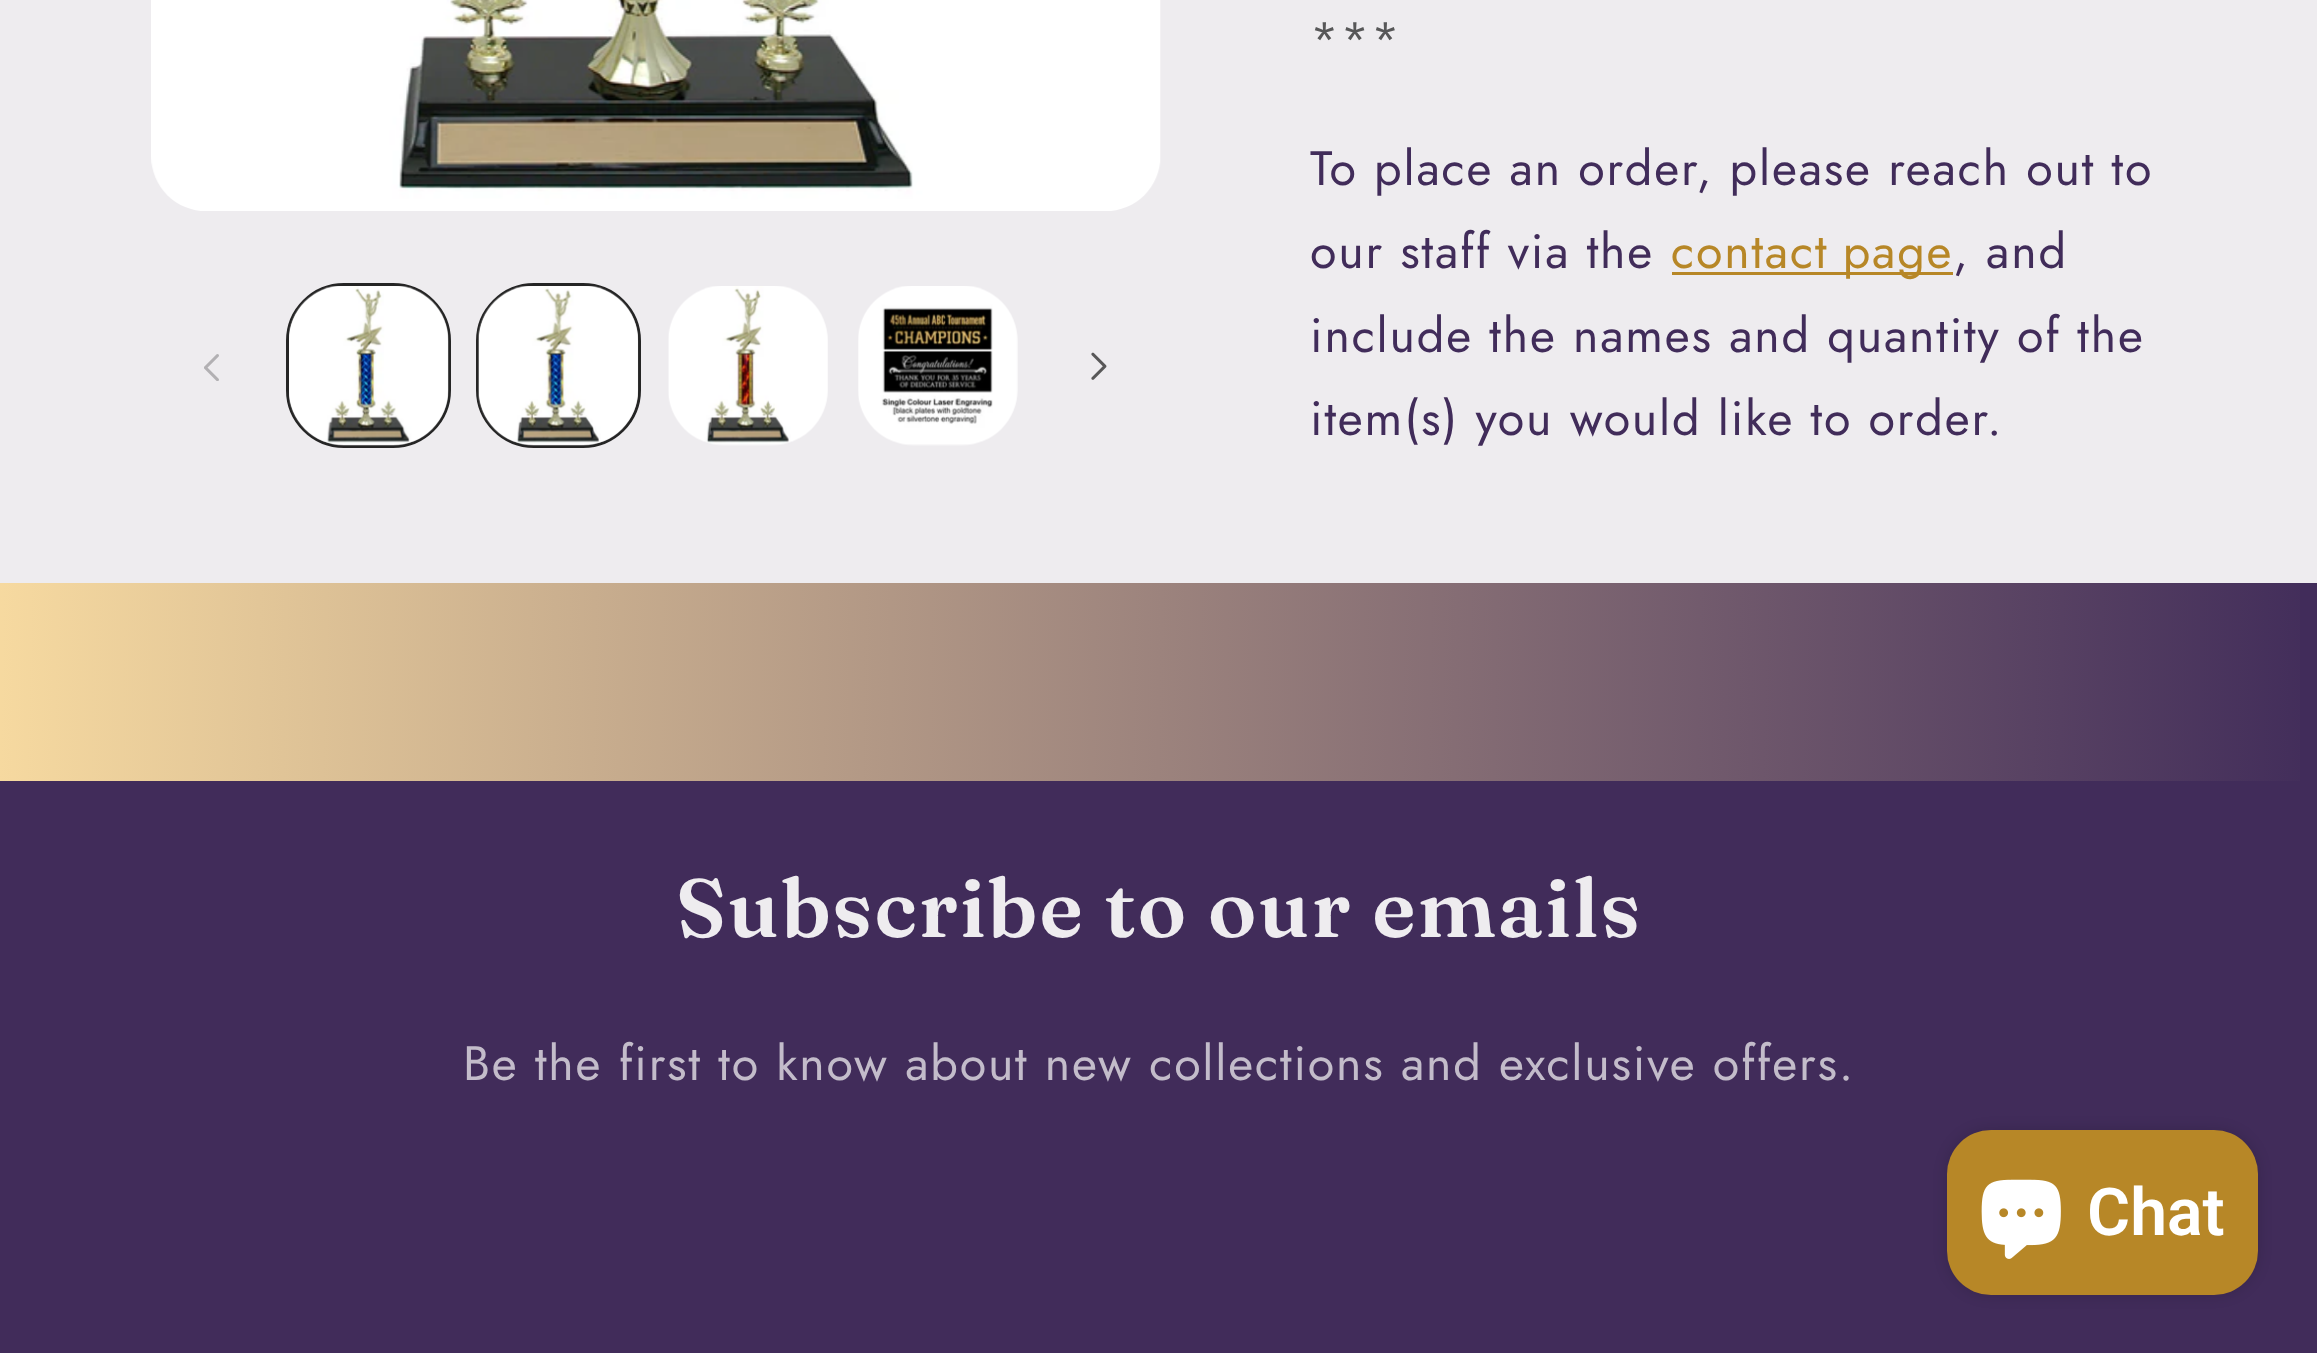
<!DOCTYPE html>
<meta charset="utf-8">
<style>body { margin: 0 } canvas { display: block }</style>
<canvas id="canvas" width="2317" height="1353"></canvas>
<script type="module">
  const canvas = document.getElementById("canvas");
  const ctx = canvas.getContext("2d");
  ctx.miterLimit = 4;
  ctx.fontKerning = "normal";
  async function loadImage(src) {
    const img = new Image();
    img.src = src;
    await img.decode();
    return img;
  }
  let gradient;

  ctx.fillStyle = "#412c5a";
  ctx.fillRect(0, 0, 2317, 1353);
  ctx.fillStyle = "#eeecef";
  ctx.fillRect(0, 0, 2317, 583);
  ctx.drawImage(await loadImage("img1.png"), 151, 0, 1010, 211);
  ctx.drawImage(await loadImage("img2.png"), 204, 354, 15, 27);
  ctx.beginPath();
  ctx.roundRect(287.5, 284.5, 162, 162, 56.5);
  ctx.strokeStyle = "#252525";
  ctx.lineWidth = 3;
  ctx.stroke();
  ctx.drawImage(await loadImage("img3.png"), 289, 286, 160, 160);
  ctx.beginPath();
  ctx.roundRect(477.5, 284.5, 162, 162, 56.5);
  ctx.stroke();
  ctx.drawImage(await loadImage("img4.png"), 478, 286, 161, 160);
  ctx.drawImage(await loadImage("img5.png"), 668, 286, 160, 160);
  ctx.drawImage(await loadImage("img6.png"), 858, 286, 160, 160);
  ctx.drawImage(await loadImage("img7.png"), 1091, 352, 16, 28);
  ctx.letterSpacing = "1.82px";
  ctx.font = "48.4px Jost";
  ctx.fillStyle = "#575758";
  ctx.fillText("***", 1310, 56);
  ctx.fillStyle = "#412c5a";
  ctx.fillText("To place an order, please reach out to", 1310, 185);
  ctx.fillText("our staff via the", 1310, 268);
  ctx.fillStyle = "#b78727";
  ctx.fillRect(1672, 272, 281, 3);
  ctx.wordSpacing = "-2px";
  ctx.fillText("contact page", 1671, 268);
  ctx.wordSpacing = "0px";
  ctx.fillStyle = "#412c5a";
  ctx.fillText(", and", 1953, 268);
  ctx.fillText("include the names and quantity of the", 1310, 352);
  ctx.fillText("item(s) you would like to order.", 1310, 435);
  gradient = ctx.createLinearGradient(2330, 697, -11, 656);
  gradient.addColorStop(0, "#412c5a");
  gradient.addColorStop(1, "#f7daa0");
  ctx.fillStyle = gradient;
  ctx.fillRect(0, 583, 2300, 198);
  ctx.letterSpacing = "2.1px";
  ctx.font = "600 82.5px Fraunces";
  ctx.fillStyle = "#eeecef";
  ctx.fillText("Subscribe to our emails", 676, 937);
  ctx.letterSpacing = "1.82px";
  ctx.font = "48.4px Jost";
  ctx.fillStyle = "#c3bcca";
  ctx.fillText("Be the first to know about new collections and exclusive offers.", 463, 1080);
  ctx.fillStyle = "rgba(0, 0, 0, 0.15)";
  ctx.filter = "blur(7px)";
  ctx.beginPath();
  ctx.roundRect(1947, 1130, 311, 165, 44);
  ctx.fill();
  ctx.filter = "none";
  ctx.fillStyle = "#b78727";
  ctx.beginPath();
  ctx.roundRect(1947, 1130, 311, 165, 44);
  ctx.fill();
  ctx.drawImage(await loadImage("img8.png"), 1981, 1179, 80, 80);
  ctx.letterSpacing = "0px";
  ctx.font = "600 66px Roboto";
  ctx.fillStyle = "#ffffff";
  ctx.fillText("Chat", 2087, 1235);
</script>
